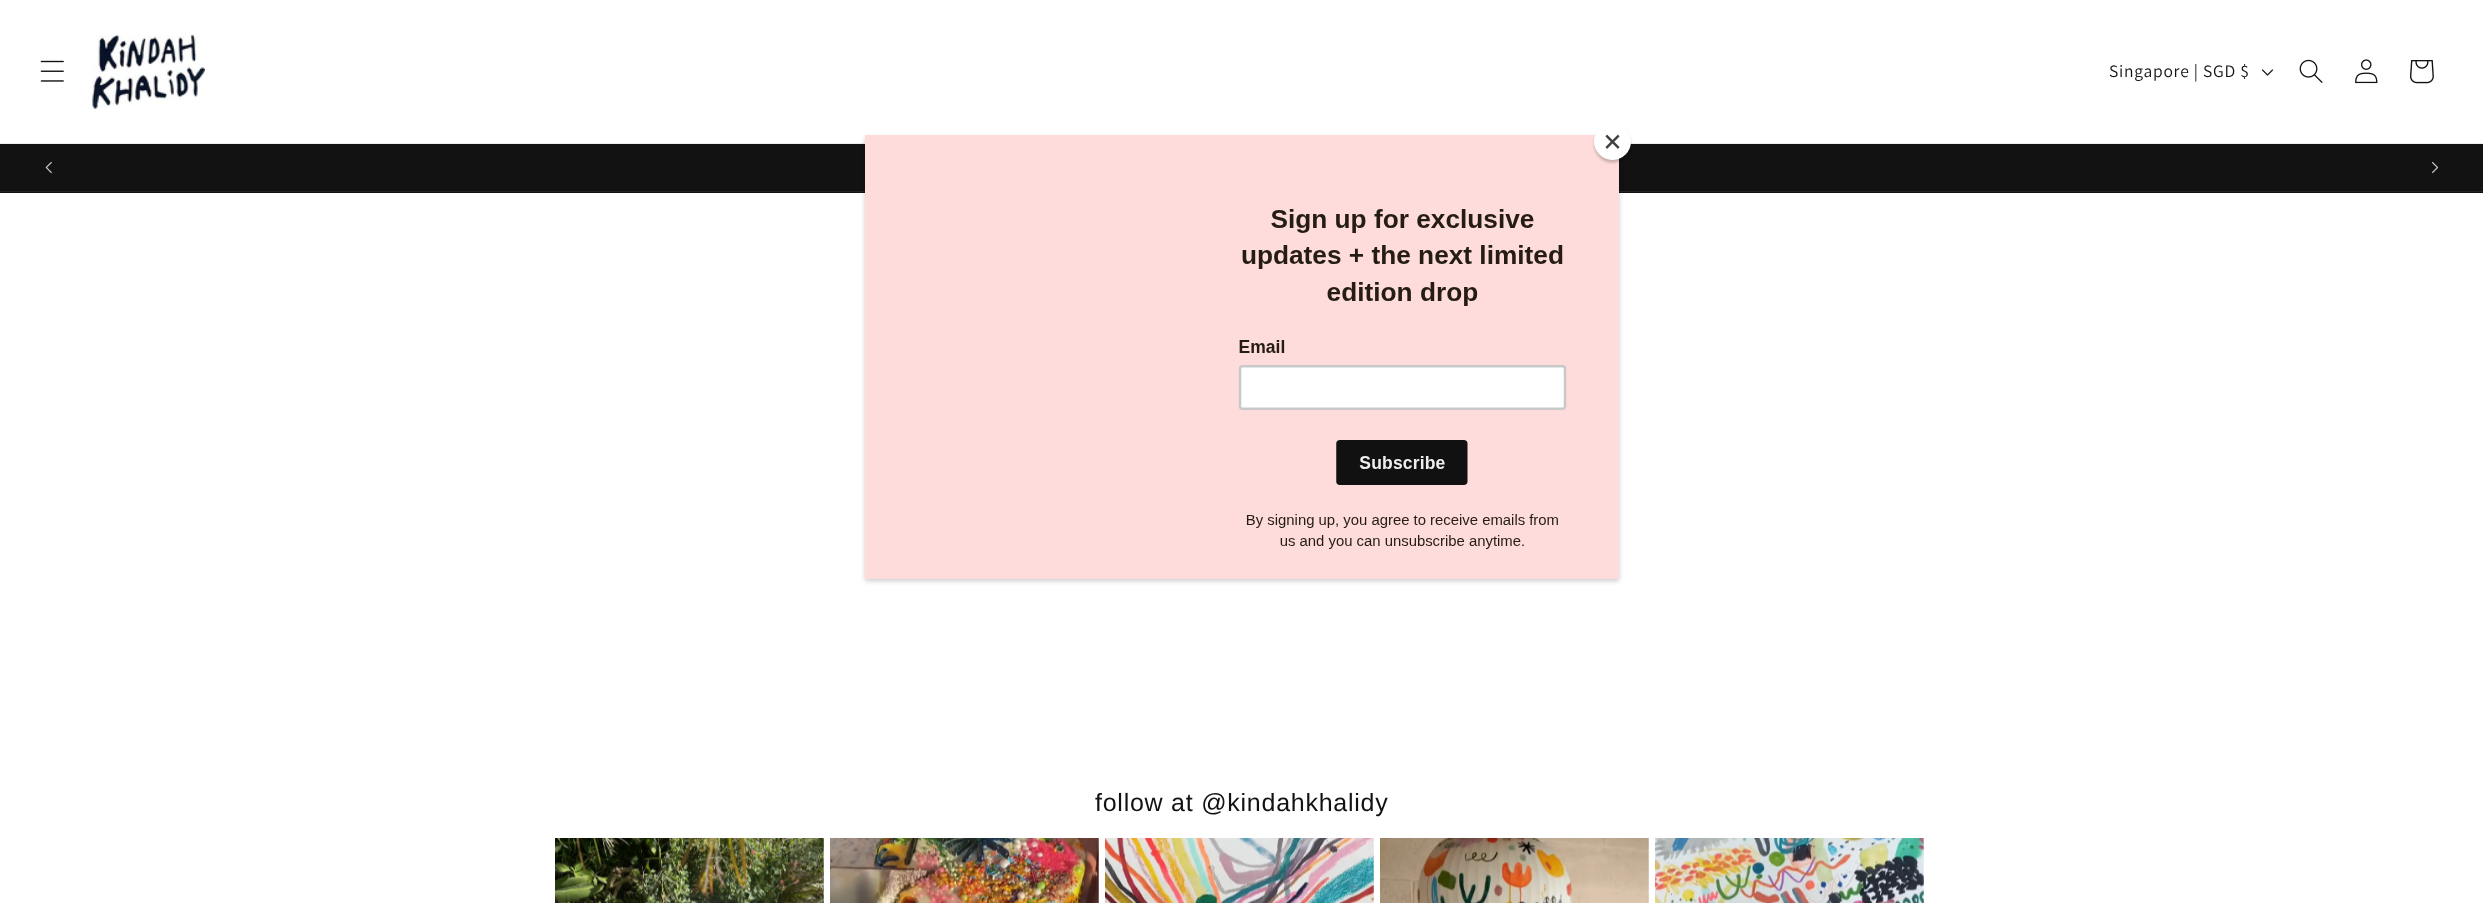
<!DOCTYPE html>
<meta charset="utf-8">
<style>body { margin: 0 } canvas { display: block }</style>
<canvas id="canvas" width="2483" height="903"></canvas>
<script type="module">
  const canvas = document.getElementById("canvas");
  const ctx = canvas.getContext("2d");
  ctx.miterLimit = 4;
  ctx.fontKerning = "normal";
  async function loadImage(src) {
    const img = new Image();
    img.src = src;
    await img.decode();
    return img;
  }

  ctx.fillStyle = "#ffffff";
  ctx.fillRect(0, 0, 2483, 903);
  ctx.fillStyle = "#ececec";
  ctx.fillRect(0, 143, 2483, 1);
  ctx.drawImage(await loadImage("img1.png"), 40, 60, 24, 22);
  ctx.drawImage(await loadImage("img2.png"), 92, 34, 113, 75);
  ctx.letterSpacing = "0.75px";
  ctx.font = "17.5px Assistant";
  ctx.fillStyle = "#121212";
  ctx.fillText("Singapore | SGD $", 2109, 77);
  ctx.drawImage(await loadImage("img3.png"), 2262, 69, 11, 7);
  ctx.drawImage(await loadImage("img4.png"), 2299, 59, 24, 24);
  ctx.drawImage(await loadImage("img5.png"), 2355, 59, 23, 25);
  ctx.drawImage(await loadImage("img6.png"), 2410, 60, 24, 24);
  ctx.fillRect(0, 144, 2483, 49);
  ctx.fillStyle = "#252525";
  ctx.fillRect(0, 191, 2483, 1);
  ctx.fillStyle = "rgba(0, 0, 0, 0.2)";
  ctx.filter = "blur(2.5px)";
  ctx.beginPath();
  ctx.rect(865, 138, 754, 443);
  ctx.fill();
  ctx.filter = "none";
  ctx.drawImage(await loadImage("img7.png"), 865, 135, 754, 444);
  ctx.filter = "blur(1px)";
  ctx.beginPath();
  ctx.roundRect(1594, 125, 37, 38, 18.5);
  ctx.fill();
  ctx.filter = "none";
  ctx.fillStyle = "#ffffff";
  ctx.beginPath();
  ctx.arc(1612.5, 141.5, 18.5, 0, Math.PI * 2);
  ctx.fill();
  ctx.fillStyle = "#414141";
  ctx.beginPath();
  ctx.moveTo(1618, 134.5);
  ctx.lineTo(1619.5, 136.5);
  ctx.lineTo(1607, 149);
  ctx.lineTo(1605.5, 147);
  ctx.closePath();
  ctx.fill();
  ctx.beginPath();
  ctx.moveTo(1605.5, 136.5);
  ctx.lineTo(1607, 134.5);
  ctx.lineTo(1619.5, 147);
  ctx.lineTo(1618, 149);
  ctx.closePath();
  ctx.fill();
  ctx.drawImage(await loadImage("img8.png"), 45, 161, 7, 13);
  ctx.drawImage(await loadImage("img9.png"), 2431, 161, 8, 13);
  ctx.font = "25px Liberation Sans";
  ctx.fillStyle = "#121212";
  ctx.fillText("follow at @kindahkhalidy", 1095, 811);
  ctx.drawImage(await loadImage("img10.png"), 555, 838, 269, 65);
  ctx.drawImage(await loadImage("img11.png"), 830, 838, 269, 65);
  ctx.drawImage(await loadImage("img12.png"), 1105, 838, 269, 65);
  ctx.drawImage(await loadImage("img13.png"), 1380, 838, 269, 65);
  ctx.drawImage(await loadImage("img14.png"), 1655, 838, 269, 65);
</script>
